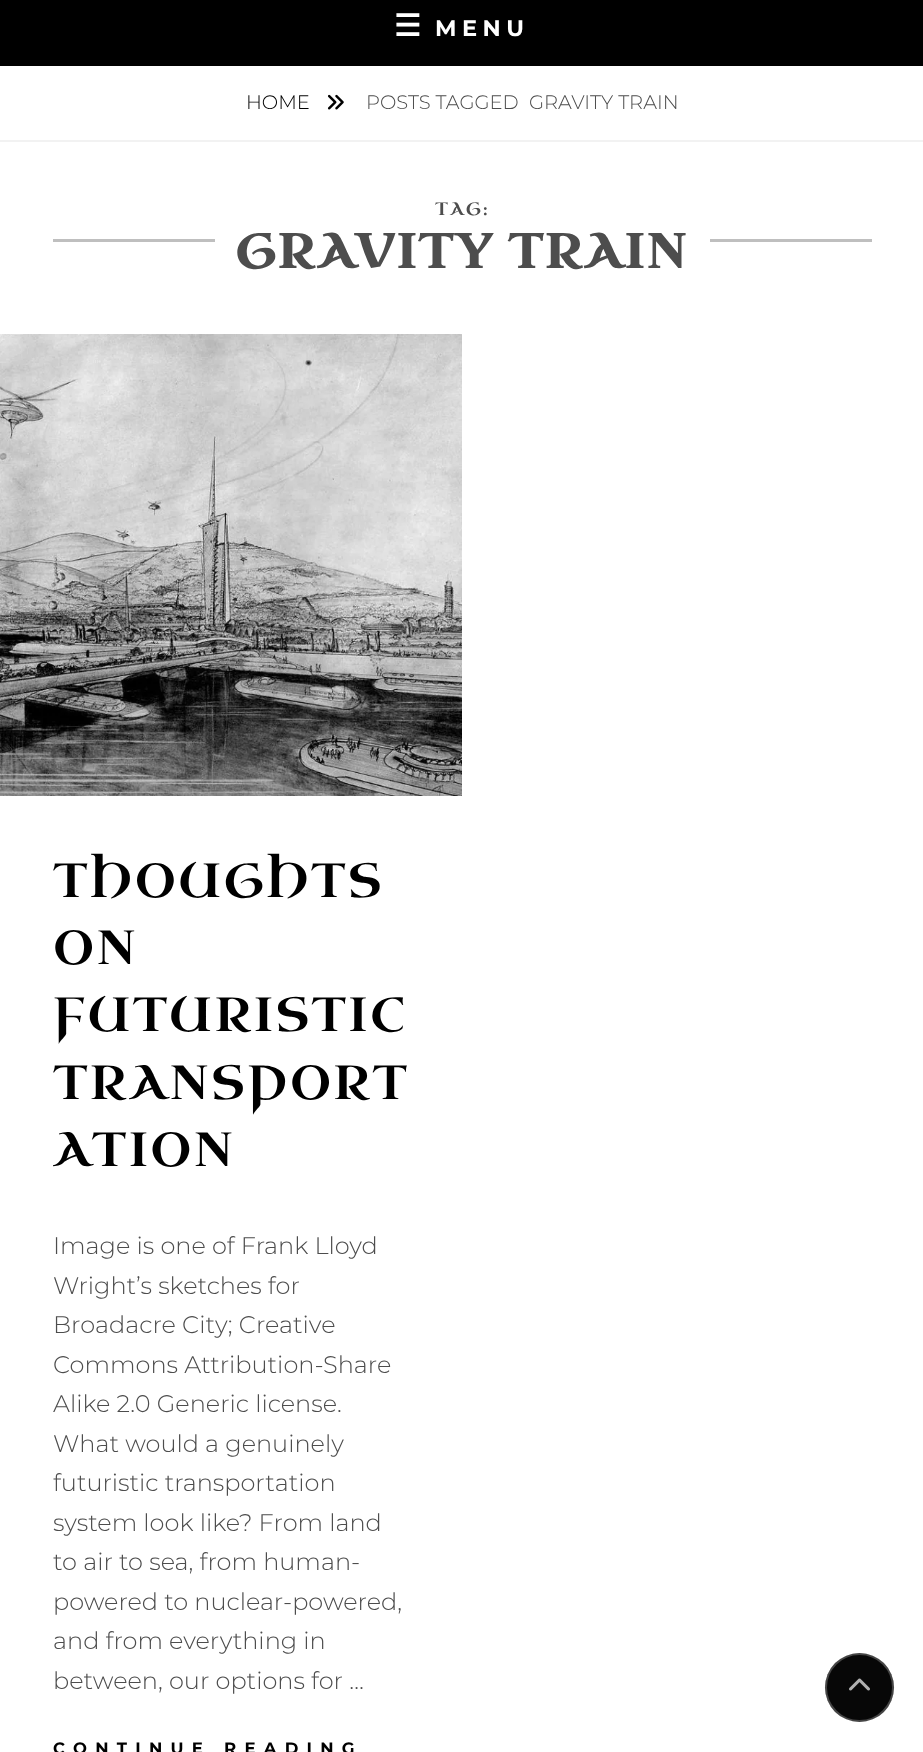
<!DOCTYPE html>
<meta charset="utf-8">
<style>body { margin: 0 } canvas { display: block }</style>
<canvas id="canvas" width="923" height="1752"></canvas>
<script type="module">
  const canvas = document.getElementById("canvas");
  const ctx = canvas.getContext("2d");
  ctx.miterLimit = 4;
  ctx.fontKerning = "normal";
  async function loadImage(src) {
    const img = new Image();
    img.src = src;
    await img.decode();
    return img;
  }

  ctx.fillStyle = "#ffffff";
  ctx.fillRect(0, 0, 923, 1752);
  ctx.fillStyle = "#000000";
  ctx.fillRect(0, 0, 923, 66);
  ctx.letterSpacing = "5.5px";
  ctx.font = "bold 30px DejaVu Sans";
  ctx.fillStyle = "#ffffff";
  ctx.fillText("☰", 394, 36);
  ctx.font = "100 22.5px 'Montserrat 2'";
  ctx.fillText("MENU", 435, 36);
  ctx.fillStyle = "#f2f2f2";
  ctx.fillRect(0, 140, 923, 2);
  ctx.letterSpacing = "0px";
  ctx.font = "100 19.5px Montserrat";
  ctx.fillStyle = "#000000";
  ctx.fillText("HOME", 246, 109);
  ctx.drawImage(await loadImage("img1.png"), 327, 94, 17, 16);
  ctx.fillStyle = "#4d4d4d";
  ctx.fillText("POSTS TAGGED", 366, 109);
  ctx.fillText("GRAVITY TRAIN", 529, 109);
  ctx.fillStyle = "#bfbfbf";
  ctx.fillRect(53, 239, 819, 3);
  ctx.fillStyle = "#ffffff";
  ctx.fillRect(215, 239, 495, 3);
  ctx.letterSpacing = "2px";
  ctx.font = "18px Uncial Antiqua";
  ctx.fillStyle = "#4d4d4d";
  ctx.fillText("TAG:", 435, 215);
  ctx.letterSpacing = "2.4px";
  ctx.font = "bold 48px Uncial Antiqua";
  ctx.fillText("GRAVITY TRAIN", 235, 268);
  ctx.drawImage(await loadImage("img2.png"), 0, 334, 462, 462);
  ctx.font = "48px Uncial Antiqua";
  ctx.fillStyle = "#000000";
  ctx.fillText("THOUGHTS", 53, 897);
  ctx.fillText("ON", 53, 964);
  ctx.fillText("FUTURISTIC", 53, 1031);
  ctx.fillText("TRANSPORT", 53, 1099);
  ctx.fillText("ATION", 53, 1166);
  ctx.letterSpacing = "0px";
  ctx.font = "100 24px Montserrat";
  ctx.fillStyle = "#4d4d4d";
  ctx.fillText("Image is one of Frank Lloyd", 53, 1254);
  ctx.fillText("Wright’s sketches for", 53, 1294);
  ctx.fillText("Broadacre City; Creative", 53, 1333);
  ctx.fillText("Commons Attribution-Share", 53, 1373);
  ctx.fillText("Alike 2.0 Generic license.", 53, 1412);
  ctx.fillText("What would a genuinely", 53, 1452);
  ctx.fillText("futuristic transportation", 53, 1491);
  ctx.fillText("system look like? From land", 53, 1531);
  ctx.fillText("to air to sea, from human-", 53, 1570);
  ctx.fillText("powered to nuclear-powered,", 53, 1610);
  ctx.fillText("and from everything in", 53, 1649);
  ctx.fillText("between, our options for …", 53, 1689);
  ctx.letterSpacing = "8.25px";
  ctx.font = "100 16.5px 'Montserrat 2'";
  ctx.fillStyle = "#000000";
  ctx.fillText("CONTINUE READING", 53, 1754);
  ctx.fillStyle = "#070707";
  ctx.beginPath();
  ctx.arc(859.5, 1687.5, 34.5, 0, Math.PI * 2);
  ctx.fill();
  ctx.beginPath();
  ctx.arc(859.5, 1687.5, 33.5, 0, Math.PI * 2);
  ctx.strokeStyle = "rgba(255, 255, 255, 0.25)";
  ctx.lineWidth = 2;
  ctx.stroke();
  ctx.drawImage(await loadImage("img3.png"), 849, 1678, 21, 13);
</script>
